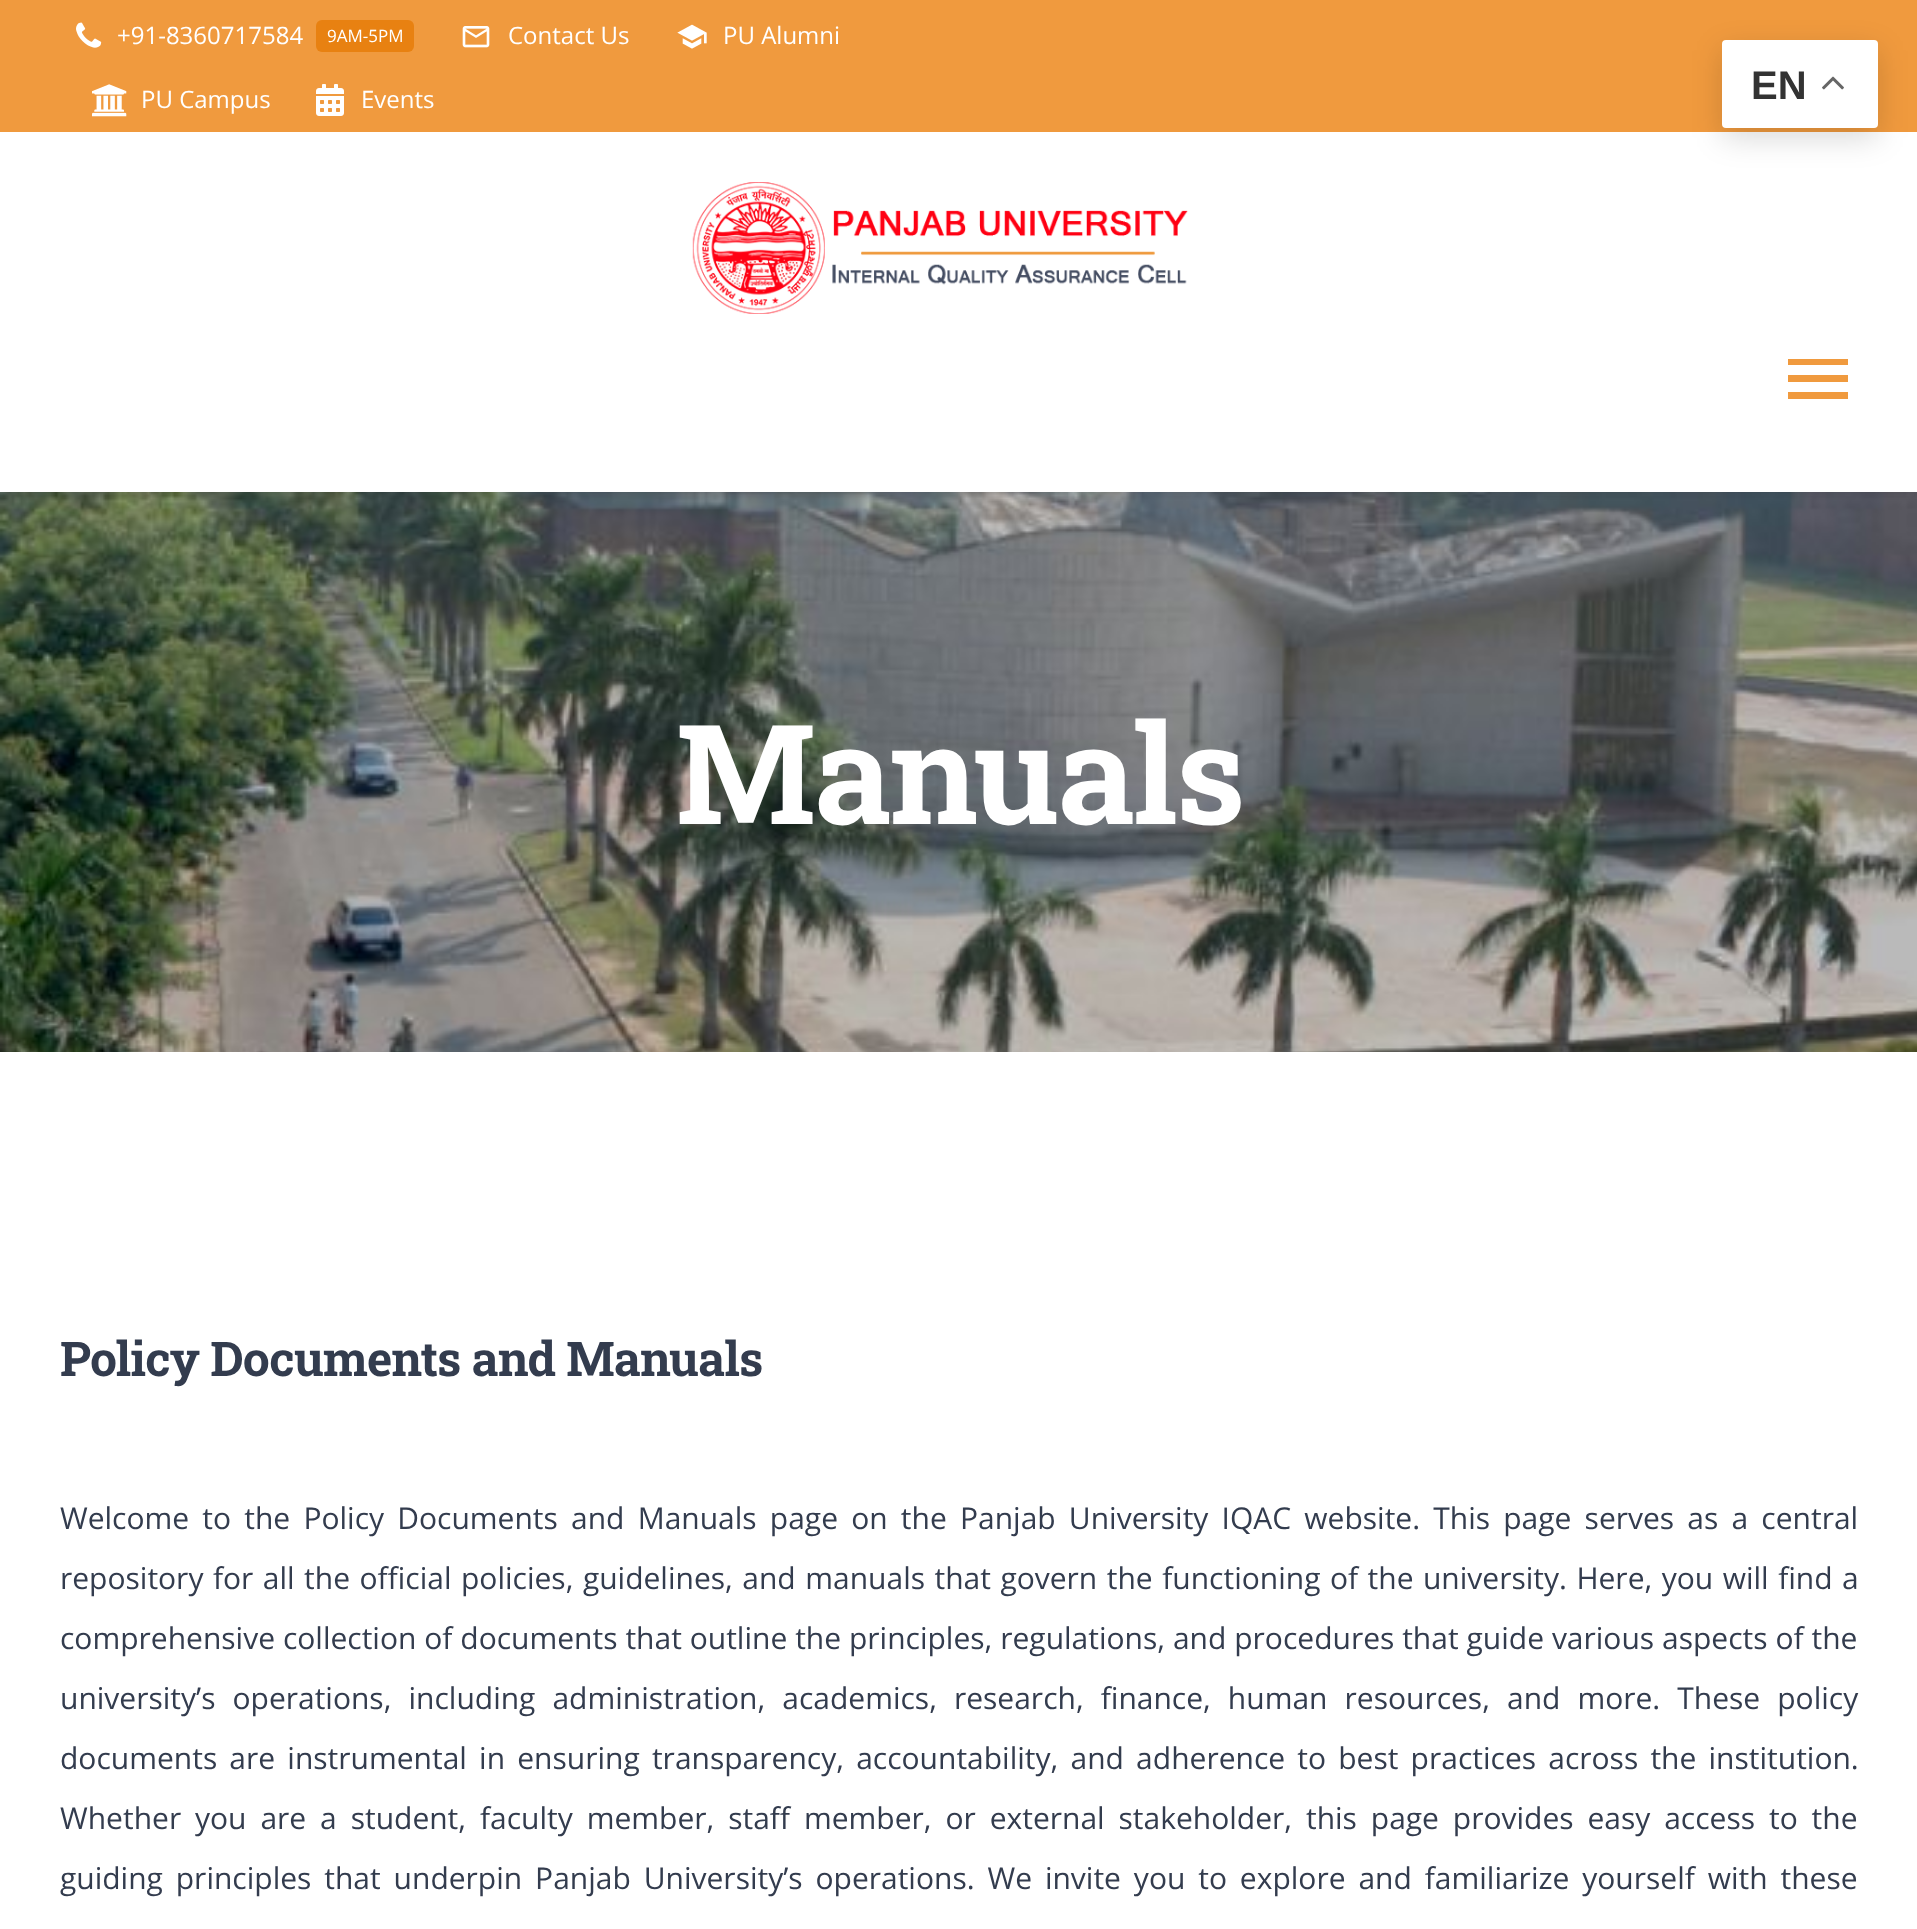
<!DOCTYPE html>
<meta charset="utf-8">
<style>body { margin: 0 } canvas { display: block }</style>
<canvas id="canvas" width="1917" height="1929"></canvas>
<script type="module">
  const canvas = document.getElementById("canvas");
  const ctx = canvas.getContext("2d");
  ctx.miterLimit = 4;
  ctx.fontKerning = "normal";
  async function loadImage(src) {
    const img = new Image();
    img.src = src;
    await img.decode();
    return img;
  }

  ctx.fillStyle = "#ffffff";
  ctx.fillRect(0, 0, 1917, 1929);
  ctx.fillStyle = "#f09a3e";
  ctx.fillRect(0, 0, 1917, 132);
  ctx.drawImage(await loadImage("img1.png"), 76, 22, 26, 26);
  ctx.font = "24px Open Sans";
  ctx.fillStyle = "#ffffff";
  ctx.fillText("+91-8360717584", 117, 44);
  ctx.fillStyle = "#e88111";
  ctx.beginPath();
  ctx.roundRect(316, 20, 98, 32, 6);
  ctx.fill();
  ctx.font = "17px Open Sans";
  ctx.fillStyle = "#ffffff";
  ctx.fillText("9AM-5PM", 327, 42);
  ctx.drawImage(await loadImage("img2.png"), 462, 26, 28, 22);
  ctx.font = "24px Open Sans";
  ctx.fillText("Contact Us", 508, 44);
  ctx.drawImage(await loadImage("img3.png"), 677, 24, 30, 25);
  ctx.fillText("PU Alumni", 723, 44);
  ctx.drawImage(await loadImage("img4.png"), 92, 84, 35, 33);
  ctx.fillText("PU Campus", 141, 108);
  ctx.drawImage(await loadImage("img5.png"), 316, 84, 28, 32);
  ctx.fillText("Events", 361, 108);
  ctx.drawImage(await loadImage("img7.png"), 0, 492, 1917, 560);
  ctx.save();
  ctx.beginPath();
  ctx.rect(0, 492, 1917, 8);
  ctx.clip();
  ctx.fillStyle = "rgba(33, 33, 33, 0.1)";
  ctx.filter = "blur(5px)";
  ctx.beginPath();
  ctx.rect(0, 136, 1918, 360);
  ctx.fill();
  ctx.filter = "none";
  ctx.restore();
  ctx.drawImage(await loadImage("img6.png"), 692, 182, 496, 132);
  ctx.fillStyle = "#f09a3e";
  ctx.beginPath();
  ctx.moveTo(1788, 359);
  ctx.lineTo(1848, 359);
  ctx.lineTo(1848, 365);
  ctx.lineTo(1788, 365);
  ctx.closePath();
  ctx.moveTo(1788, 382);
  ctx.lineTo(1788, 375);
  ctx.lineTo(1848, 375);
  ctx.lineTo(1848, 382);
  ctx.closePath();
  ctx.moveTo(1788, 399);
  ctx.lineTo(1788, 392);
  ctx.lineTo(1848, 392);
  ctx.lineTo(1848, 399);
  ctx.closePath();
  ctx.fill();
  ctx.letterSpacing = "-2px";
  ctx.font = "bold 138.5px Roboto Slab";
  ctx.fillStyle = "#ffffff";
  ctx.fillText("Manuals", 676, 824);
  ctx.letterSpacing = "-0.75px";
  ctx.font = "bold 48px Roboto Slab";
  ctx.fillStyle = "#333c4e";
  ctx.fillText("Policy Documents and Manuals", 60, 1376);
  ctx.letterSpacing = "0px";
  ctx.wordSpacing = "5.4px";
  ctx.font = "30px Open Sans";
  ctx.fillText("Welcome to the Policy Documents and Manuals page on the Panjab University IQAC website. This page serves as a central", 60, 1529);
  ctx.wordSpacing = "1.7px";
  ctx.fillText("repository for all the official policies, guidelines, and manuals that govern the functioning of the university. Here, you will find a", 60, 1589);
  ctx.wordSpacing = "0.1px";
  ctx.fillText("comprehensive collection of documents that outline the principles, regulations, and procedures that guide various aspects of the", 60, 1649);
  ctx.wordSpacing = "9.25px";
  ctx.fillText("university’s operations, including administration, academics, research, finance, human resources, and more. These policy", 60, 1709);
  ctx.wordSpacing = "4.4px";
  ctx.fillText("documents are instrumental in ensuring transparency, accountability, and adherence to best practices across the institution.", 60, 1769);
  ctx.wordSpacing = "6.1px";
  ctx.fillText("Whether you are a student, faculty member, staff member, or external stakeholder, this page provides easy access to the", 60, 1829);
  ctx.wordSpacing = "5.1px";
  ctx.fillText("guiding principles that underpin Panjab University’s operations. We invite you to explore and familiarize yourself with these", 60, 1889);
  ctx.fillStyle = "rgba(0, 0, 0, 0.15)";
  ctx.filter = "blur(15px)";
  ctx.beginPath();
  ctx.roundRect(1722, 50, 156, 88, 4);
  ctx.fill();
  ctx.filter = "none";
  ctx.fillStyle = "#ffffff";
  ctx.beginPath();
  ctx.roundRect(1722, 40, 156, 88, 4);
  ctx.fill();
  ctx.wordSpacing = "0px";
  ctx.font = "bold 40px Liberation Sans";
  ctx.fillStyle = "#333333";
  ctx.fillText("EN", 1751, 99);
  ctx.drawImage(await loadImage("img8.png"), 1822, 76, 22, 14);
</script>
